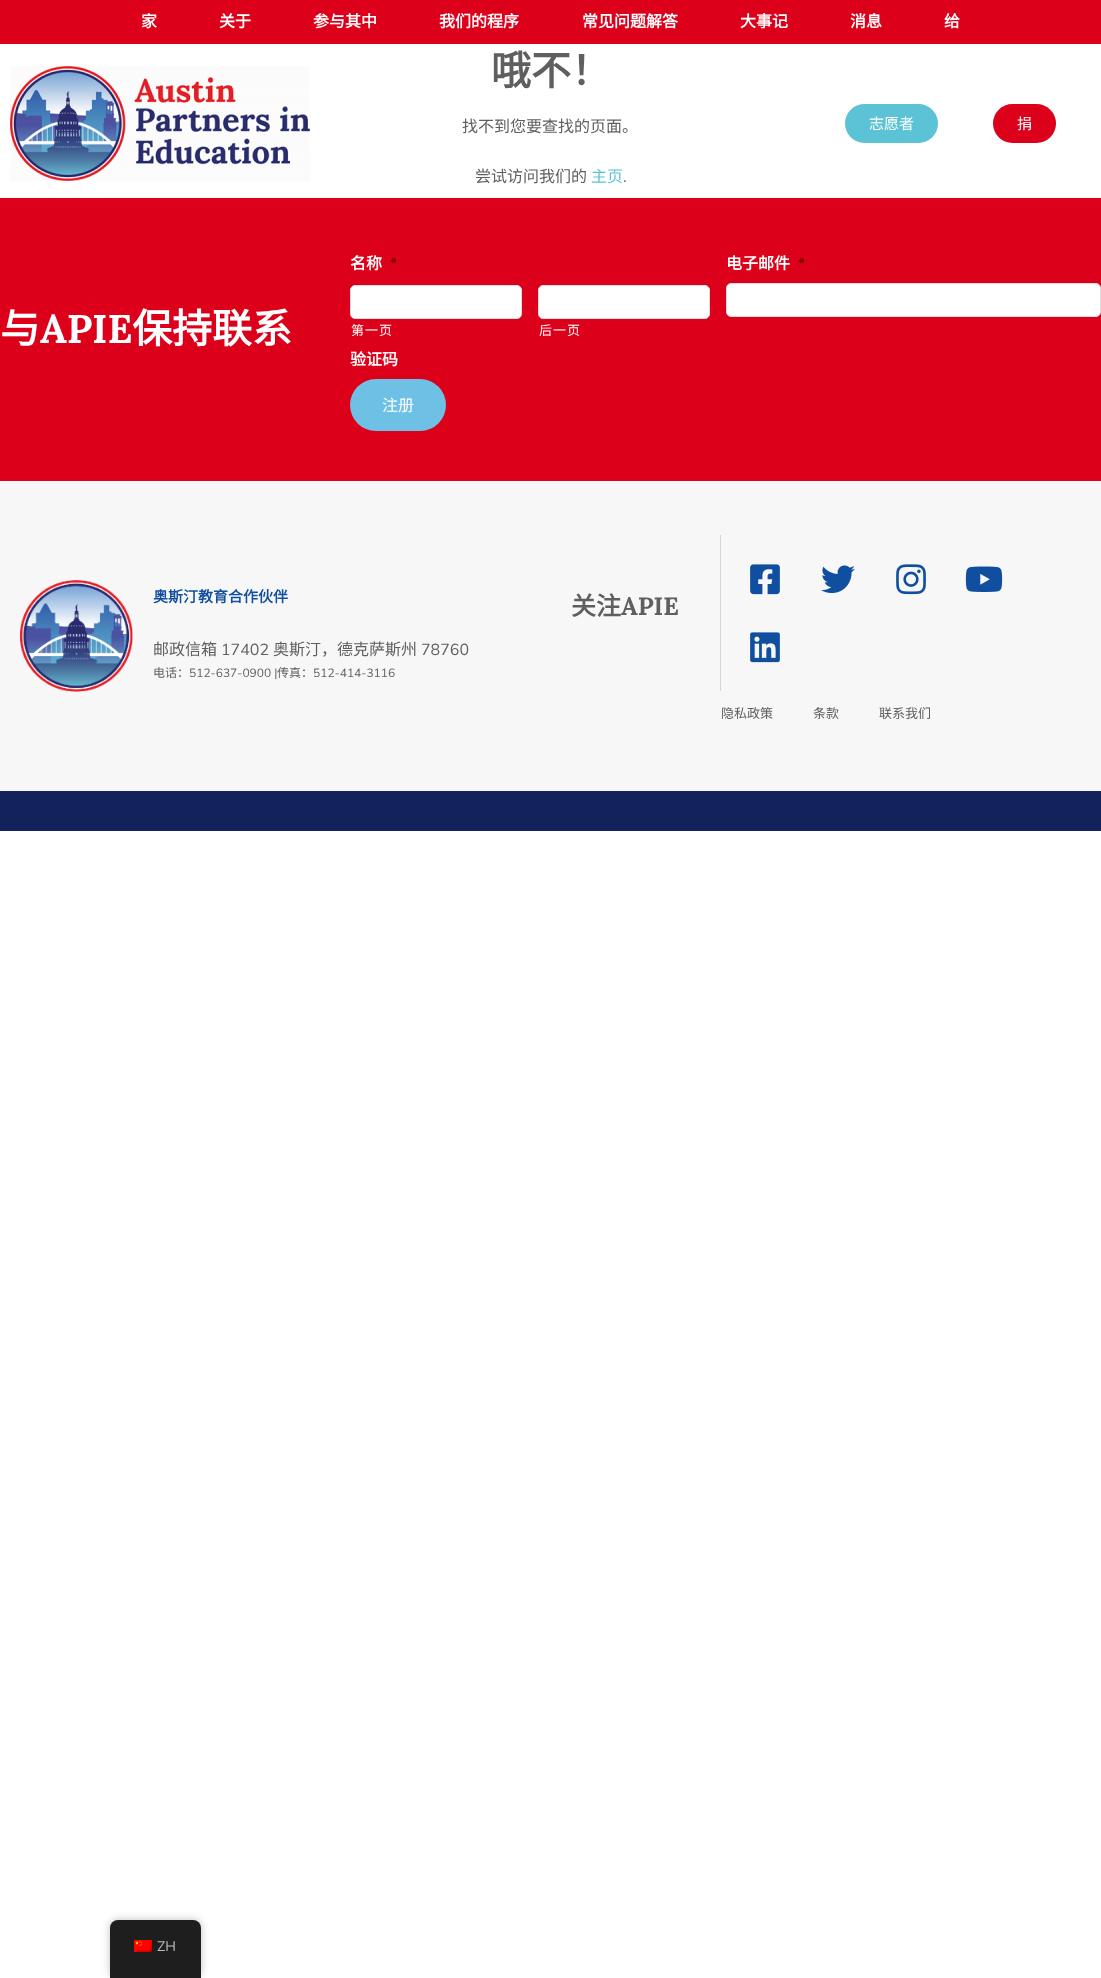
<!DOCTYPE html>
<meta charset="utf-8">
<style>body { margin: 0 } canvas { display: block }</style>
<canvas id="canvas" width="1101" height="1978"></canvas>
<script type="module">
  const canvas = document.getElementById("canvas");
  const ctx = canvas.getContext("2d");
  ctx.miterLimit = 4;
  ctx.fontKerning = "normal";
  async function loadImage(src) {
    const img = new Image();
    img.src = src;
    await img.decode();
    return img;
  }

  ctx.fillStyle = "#ffffff";
  ctx.fillRect(0, 0, 1101, 1978);
  ctx.fillStyle = "#dc001a";
  ctx.fillRect(0, 0, 1101, 44);
  ctx.font = "bold 16px Noto Sans CJK SC";
  ctx.fillStyle = "#ffffff";
  ctx.fillText("家", 141, 27);
  ctx.fillText("关于", 219, 27);
  ctx.fillText("参与其中", 313, 27);
  ctx.fillText("我们的程序", 439, 27);
  ctx.fillText("常见问题解答", 582, 27);
  ctx.fillText("大事记", 740, 27);
  ctx.fillText("消息", 850, 27);
  ctx.fillText("给", 944, 27);
  ctx.drawImage(await loadImage("img1.png"), 10, 66, 300, 115);
  ctx.fillStyle = "#5cc3d6";
  ctx.beginPath();
  ctx.roundRect(845, 104, 93, 39, 19.5);
  ctx.fill();
  ctx.font = "15px Noto Sans CJK SC";
  ctx.fillStyle = "#ffffff";
  ctx.fillText("志愿者", 869, 129);
  ctx.fillStyle = "#dc001a";
  ctx.beginPath();
  ctx.roundRect(993, 104, 63, 39, 19.5);
  ctx.fill();
  ctx.fillStyle = "#ffffff";
  ctx.fillText("捐", 1017, 129);
  ctx.font = "bold 40px Noto Sans CJK SC";
  ctx.fillStyle = "#5f5f5f";
  ctx.fillText("哦不！", 491, 85);
  ctx.font = "16px Noto Sans CJK SC";
  ctx.fillText("找不到您要查找的页面。", 462, 132);
  ctx.fillText("尝试访问我们的", 475, 182);
  ctx.fillStyle = "#5cc3d6";
  ctx.fillText("主页", 591, 182);
  ctx.font = "16px Nunito";
  ctx.fillStyle = "#5f5f5f";
  ctx.fillText(".", 623, 182);
  ctx.fillStyle = "#dc001a";
  ctx.fillRect(0, 198, 1101, 283);
  ctx.font = "bold 40px Noto Sans CJK SC";
  ctx.fillStyle = "#ffffff";
  ctx.fillText("与", 0, 343);
  ctx.font = "bold 40px Lora";
  ctx.fillText("APIE", 40, 343);
  ctx.font = "bold 40px Noto Sans CJK SC";
  ctx.fillText("保持联系", 132, 343);
  ctx.font = "bold 16px Noto Sans CJK SC";
  ctx.fillText("名称", 350, 269);
  ctx.font = "bold 16px Nunito";
  ctx.fillStyle = "#790000";
  ctx.fillText("*", 390, 269);
  ctx.fillStyle = "#ffffff";
  ctx.beginPath();
  ctx.roundRect(350.5, 285.5, 171, 33, 4.5);
  ctx.fill();
  ctx.strokeStyle = "#dddddd";
  ctx.stroke();
  ctx.letterSpacing = "1px";
  ctx.font = "13px Noto Sans CJK SC";
  ctx.fillText("第一页", 351, 335);
  ctx.beginPath();
  ctx.roundRect(538.5, 285.5, 171, 33, 4.5);
  ctx.fill();
  ctx.stroke();
  ctx.fillText("后一页", 539, 335);
  ctx.letterSpacing = "0px";
  ctx.font = "bold 16px Noto Sans CJK SC";
  ctx.fillText("电子邮件", 726, 269);
  ctx.font = "bold 16px Nunito";
  ctx.fillStyle = "#790000";
  ctx.fillText("*", 798, 269);
  ctx.fillStyle = "#ffffff";
  ctx.beginPath();
  ctx.roundRect(726.5, 283.5, 374, 33, 4.5);
  ctx.fill();
  ctx.stroke();
  ctx.font = "bold 16px Noto Sans CJK SC";
  ctx.fillText("验证码", 350, 365);
  ctx.fillStyle = "#6ec1e4";
  ctx.beginPath();
  ctx.roundRect(350, 379, 96, 52, 26);
  ctx.fill();
  ctx.font = "16px Noto Sans CJK SC";
  ctx.fillStyle = "#ffffff";
  ctx.fillText("注册", 382, 411);
  ctx.fillStyle = "#f7f7f7";
  ctx.fillRect(0, 481, 1101, 310);
  ctx.drawImage(await loadImage("img2.png"), 20, 580, 113, 112);
  ctx.font = "bold 15px Noto Sans CJK SC";
  ctx.fillStyle = "#104f9f";
  ctx.fillText("奥斯汀教育合作伙伴", 153, 602);
  ctx.font = "16px Noto Sans CJK SC";
  ctx.fillStyle = "#5f5f5f";
  ctx.fillText("邮政信箱", 153, 655);
  ctx.font = "16px Nunito";
  ctx.fillText("17402", 221, 655);
  ctx.font = "16px Noto Sans CJK SC";
  ctx.fillText("奥斯汀，德克萨斯州", 273, 655);
  ctx.font = "16px Nunito";
  ctx.fillText("78760", 421, 655);
  ctx.font = "12px Noto Sans CJK SC";
  ctx.fillText("电话：", 153, 677);
  ctx.font = "12px Nunito";
  ctx.fillText("512-637-0900 |", 189, 677);
  ctx.font = "12px Noto Sans CJK SC";
  ctx.fillText("传真：", 277, 677);
  ctx.font = "12px Nunito";
  ctx.fillText("512-414-3116", 313, 677);
  ctx.font = "bold 25px Noto Sans CJK SC";
  ctx.fillText("关注", 571, 615);
  ctx.font = "bold 25px Lora";
  ctx.fillText("APIE", 621, 615);
  ctx.fillStyle = "#d5d5d5";
  ctx.fillRect(720, 535, 1, 156);
  ctx.drawImage(await loadImage("img3.png"), 750, 564, 30, 31);
  ctx.drawImage(await loadImage("img4.png"), 821, 565, 34, 29);
  ctx.drawImage(await loadImage("img5.png"), 896, 564, 30, 31);
  ctx.drawImage(await loadImage("img6.png"), 965, 566, 38, 26);
  ctx.drawImage(await loadImage("img7.png"), 750, 632, 30, 31);
  ctx.font = "13px Noto Sans CJK SC";
  ctx.fillStyle = "#5f5f5f";
  ctx.fillText("隐私政策", 721, 718);
  ctx.fillText("条款", 813, 718);
  ctx.fillText("联系我们", 879, 718);
  ctx.fillStyle = "#14225b";
  ctx.fillRect(0, 791, 1101, 40);
  ctx.fillStyle = "rgba(0, 0, 0, 0.25)";
  ctx.filter = "blur(4px)";
  ctx.beginPath();
  ctx.roundRect(110, 1920, 91, 58, 8);
  ctx.fill();
  ctx.filter = "none";
  ctx.fillStyle = "#1e1e1e";
  ctx.beginPath();
  ctx.roundRect(110, 1920, 91, 58, [8, 8, 0, 0]);
  ctx.fill();
  ctx.drawImage(await loadImage("img8.png"), 134, 1940, 18, 12);
  ctx.font = "14px Nunito";
  ctx.fillStyle = "#bdbdbd";
  ctx.fillText("ZH", 157, 1951);
</script>
